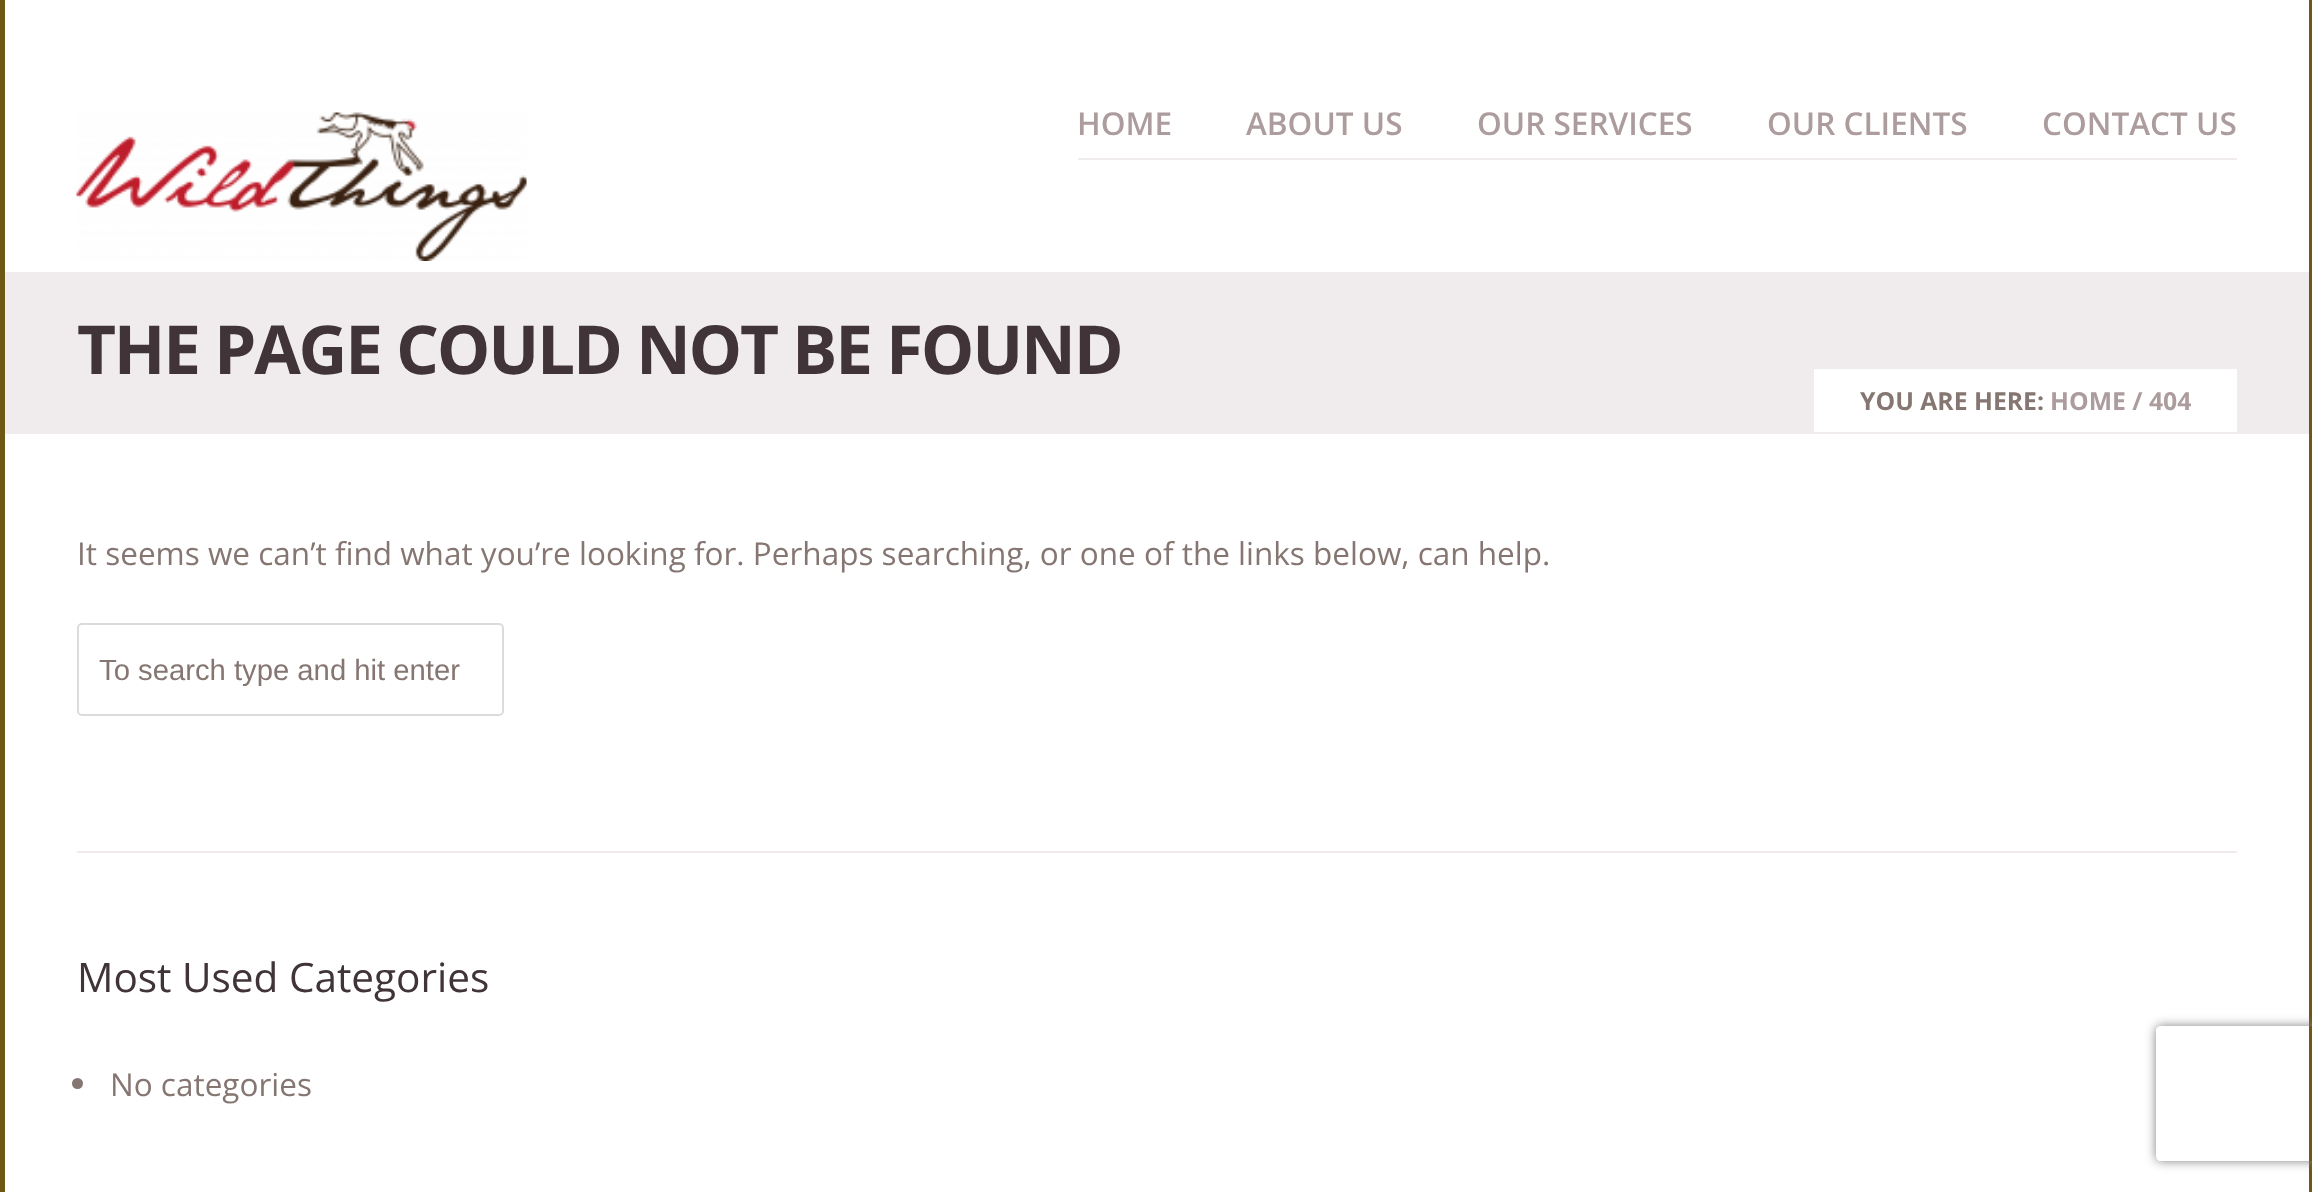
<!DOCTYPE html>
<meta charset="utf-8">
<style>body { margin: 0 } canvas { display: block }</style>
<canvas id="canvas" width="2312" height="1192"></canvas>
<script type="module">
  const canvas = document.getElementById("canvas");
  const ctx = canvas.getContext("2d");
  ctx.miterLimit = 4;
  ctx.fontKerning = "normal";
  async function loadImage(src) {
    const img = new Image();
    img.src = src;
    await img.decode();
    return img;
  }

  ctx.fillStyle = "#6e5614";
  ctx.fillRect(0, 0, 2312, 1192);
  ctx.fillStyle = "#ffffff";
  ctx.fillRect(5, 0, 2304, 272);
  ctx.drawImage(await loadImage("img1.png"), 76, 112, 451, 149);
  ctx.fillStyle = "#f0eced";
  ctx.fillRect(1078, 158, 1159, 2);
  ctx.font = "600 31.5px Open Sans";
  ctx.fillStyle = "#ad9c9d";
  ctx.fillText("HOME", 1077, 135);
  ctx.fillText("ABOUT US", 1246, 135);
  ctx.fillText("OUR SERVICES", 1477, 135);
  ctx.fillText("OUR CLIENTS", 1767, 135);
  ctx.fillText("CONTACT US", 2042, 135);
  ctx.fillStyle = "#f0eced";
  ctx.fillRect(5, 272, 2304, 162);
  ctx.letterSpacing = "-2.25px";
  ctx.font = "bold 67.5px Open Sans";
  ctx.fillStyle = "#403438";
  ctx.fillText("THE PAGE COULD NOT BE FOUND", 77, 374);
  ctx.fillStyle = "#ffffff";
  ctx.fillRect(1814, 369, 423, 63);
  ctx.letterSpacing = "0px";
  ctx.font = "bold 24.75px Open Sans";
  ctx.fillStyle = "#857672";
  ctx.fillText("YOU ARE HERE:", 1860, 410);
  ctx.fillStyle = "#ad9c9d";
  ctx.fillText("HOME / 404", 2050, 410);
  ctx.fillStyle = "#ffffff";
  ctx.fillRect(5, 434, 2304, 758);
  ctx.font = "31.5px Open Sans";
  ctx.fillStyle = "#857672";
  ctx.fillText("It seems we can’t find what you’re looking for. Perhaps searching, or one of the links below, can help.", 77, 565);
  ctx.beginPath();
  ctx.roundRect(78, 624, 425, 91, 4);
  ctx.strokeStyle = "#dbdbdb";
  ctx.lineWidth = 2;
  ctx.stroke();
  ctx.font = "29.25px Liberation Sans";
  ctx.fillText("To search type and hit enter", 99, 680);
  ctx.fillStyle = "#f0eced";
  ctx.fillRect(77, 851, 2160, 2);
  ctx.font = "40.5px Open Sans";
  ctx.fillStyle = "#403438";
  ctx.fillText("Most Used Categories", 77, 992);
  ctx.fillStyle = "#857672";
  ctx.beginPath();
  ctx.arc(77.5, 1083.5, 5.5, 0, Math.PI * 2);
  ctx.fill();
  ctx.font = "31.5px Open Sans";
  ctx.fillText("No categories", 110, 1096);
  ctx.save();
  ctx.beginPath();
  ctx.moveTo(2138, 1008);
  ctx.lineTo(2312, 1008);
  ctx.lineTo(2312, 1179);
  ctx.lineTo(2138, 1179);
  ctx.closePath();
  ctx.moveTo(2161, 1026);
  ctx.lineTo(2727, 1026);
  ctx.bezierCurveTo(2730, 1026, 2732, 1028, 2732, 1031);
  ctx.lineTo(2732, 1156);
  ctx.bezierCurveTo(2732, 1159, 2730, 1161, 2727, 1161);
  ctx.lineTo(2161, 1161);
  ctx.bezierCurveTo(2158, 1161, 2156, 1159, 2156, 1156);
  ctx.lineTo(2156, 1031);
  ctx.bezierCurveTo(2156, 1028, 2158, 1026, 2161, 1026);
  ctx.closePath();
  ctx.clip("evenodd");
  ctx.fillStyle = "#808080";
  ctx.filter = "blur(5.5px)";
  ctx.beginPath();
  ctx.roundRect(2156, 1026, 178, 135, 5);
  ctx.fill();
  ctx.filter = "none";
  ctx.restore();
</script>
